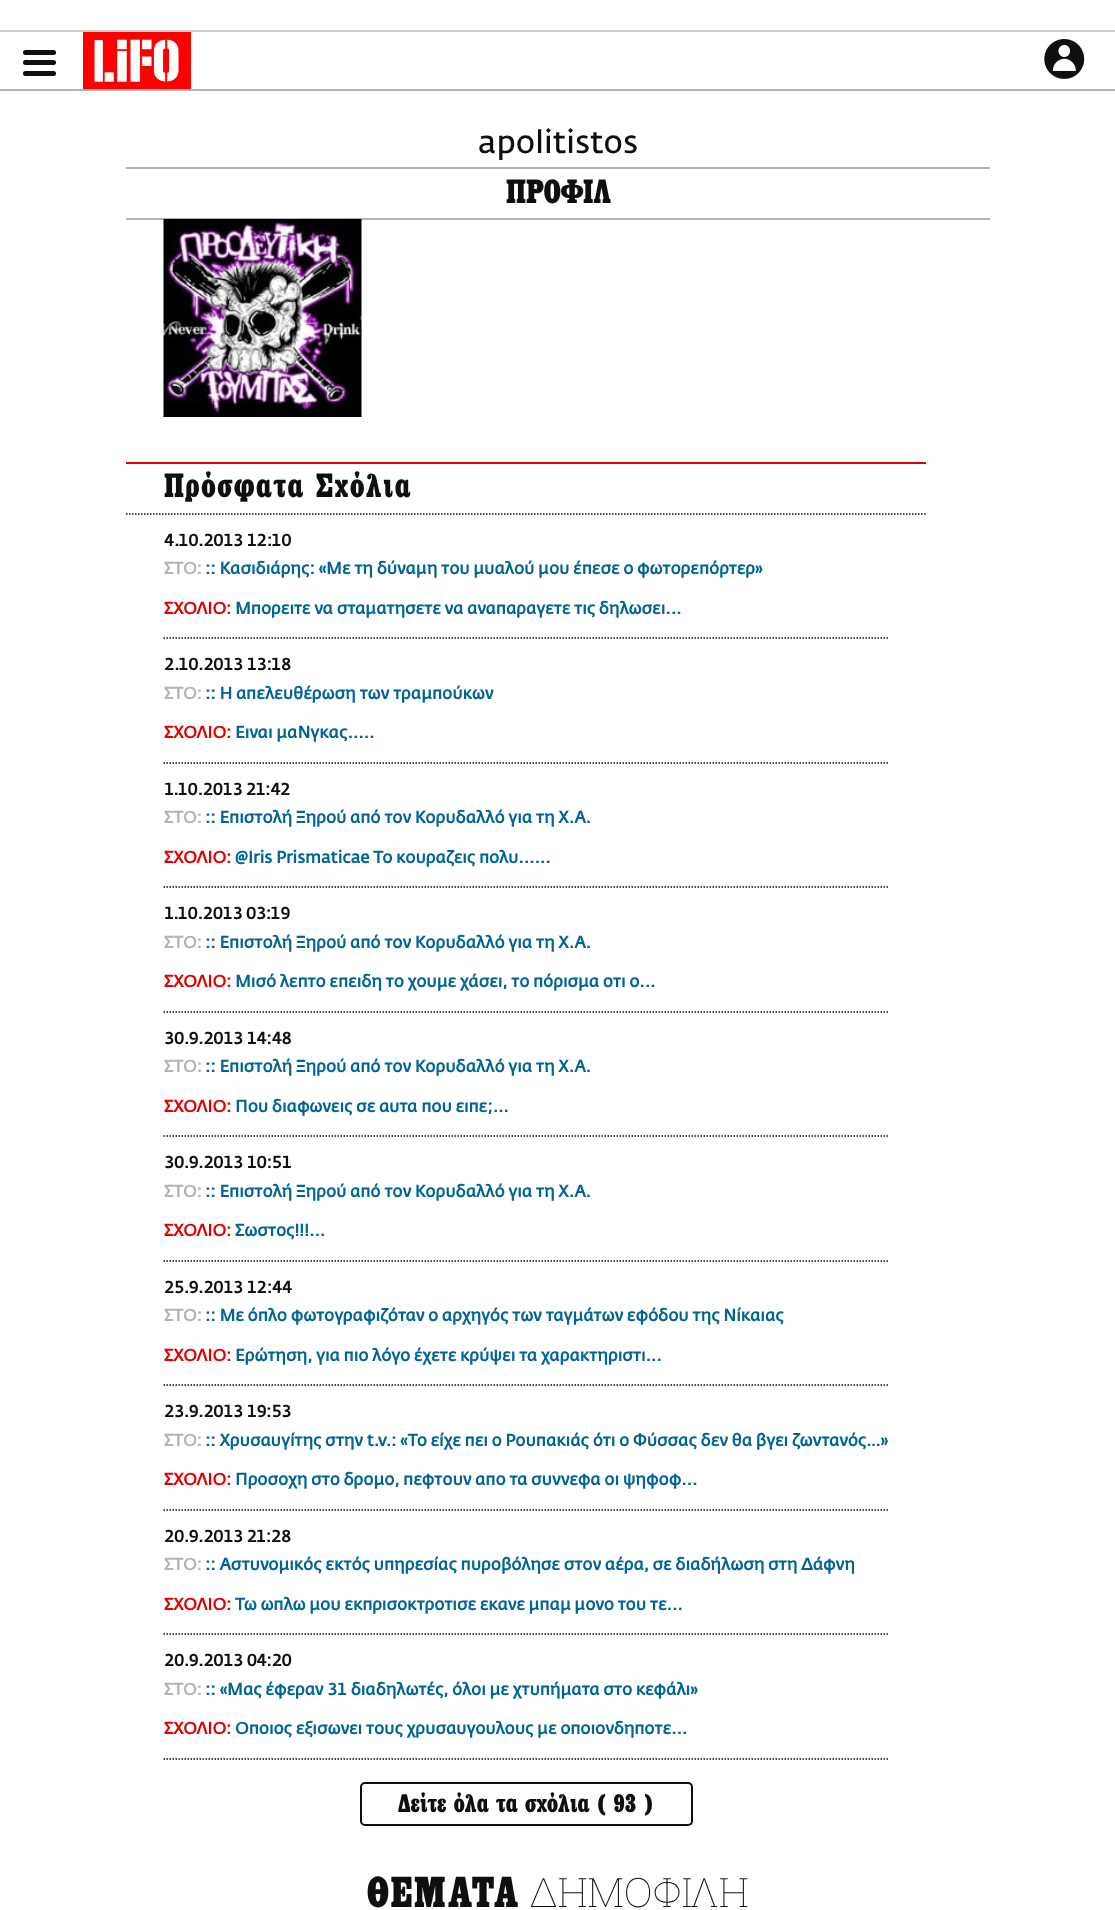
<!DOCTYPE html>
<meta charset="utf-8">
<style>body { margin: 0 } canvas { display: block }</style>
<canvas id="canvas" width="1115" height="1910"></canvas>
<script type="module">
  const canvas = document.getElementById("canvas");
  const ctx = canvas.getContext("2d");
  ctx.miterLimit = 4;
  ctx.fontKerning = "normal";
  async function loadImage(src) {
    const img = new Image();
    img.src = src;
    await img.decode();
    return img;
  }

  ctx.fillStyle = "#ffffff";
  ctx.fillRect(0, 0, 1115, 1910);
  ctx.fillStyle = "#cccccc";
  ctx.fillRect(0, 30, 1115, 2);
  ctx.fillStyle = "#b4b4b4";
  ctx.fillRect(0, 89, 1115, 2);
  ctx.fillStyle = "#0f0f0f";
  ctx.beginPath();
  ctx.roundRect(23, 50, 33, 5, 2.5);
  ctx.fill();
  ctx.beginPath();
  ctx.roundRect(23, 60, 33, 5, 2.5);
  ctx.fill();
  ctx.beginPath();
  ctx.roundRect(23, 71, 33, 5, 2.5);
  ctx.fill();
  ctx.fillStyle = "#ff0000";
  ctx.fillRect(83, 32, 108, 57);
  ctx.drawImage(await loadImage("img1.png"), 94, 39, 85, 43);
  ctx.drawImage(await loadImage("img2.png"), 1044, 39, 41, 40);
  ctx.font = "31.5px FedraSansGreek";
  ctx.fillStyle = "#0f0f0f";
  ctx.fillText("apolitistos", 478, 153);
  ctx.fillStyle = "#b4b4b4";
  ctx.fillRect(126, 167, 864, 2);
  ctx.font = "bold 31.5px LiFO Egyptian";
  ctx.fillStyle = "#0f0f0f";
  ctx.fillText("ΠΡΟΦΙΛ", 506, 203);
  ctx.fillStyle = "#b4b4b4";
  ctx.fillRect(126, 218, 864, 2);
  ctx.drawImage(await loadImage("img3.png"), 163, 219, 199, 198);
  ctx.fillStyle = "#e00000";
  ctx.fillRect(126, 462, 800, 2);
  ctx.letterSpacing = "1.6px";
  ctx.fillStyle = "#0f0f0f";
  ctx.fillText("Πρόσφατα Σχόλια", 164, 497);
  ctx.beginPath();
  ctx.moveTo(126, 514);
  ctx.lineTo(925.5, 514);
  ctx.strokeStyle = "#0f0f0f";
  ctx.lineWidth = 1.5;
  ctx.setLineDash([1.5, 1.5]);
  ctx.stroke();
  ctx.letterSpacing = "0px";
  ctx.font = "bold 16.5px FedraSansGreek";
  ctx.fillText("4.10.2013 12:10", 164, 546);
  ctx.fillStyle = "#b4b4b4";
  ctx.fillText("ΣΤΟ:", 164, 574);
  ctx.fillStyle = "#006496";
  ctx.fillText(":: Κασιδιάρης: «Με τη δύναμη του μυαλού μου έπεσε ο φωτορεπόρτερ»", 205, 574);
  ctx.fillStyle = "#e00000";
  ctx.fillText("ΣΧΟΛΙΟ:", 164, 614);
  ctx.fillStyle = "#006496";
  ctx.fillText("Μπορειτε να σταματησετε να αναπαραγετε τις δηλωσει...", 235, 614);
  ctx.beginPath();
  ctx.moveTo(163.5, 638);
  ctx.lineTo(888, 638);
  ctx.stroke();
  ctx.fillStyle = "#0f0f0f";
  ctx.fillText("2.10.2013 13:18", 164, 670);
  ctx.fillStyle = "#b4b4b4";
  ctx.fillText("ΣΤΟ:", 164, 699);
  ctx.fillStyle = "#006496";
  ctx.fillText(":: Η απελευθέρωση των τραμπούκων", 205, 699);
  ctx.fillStyle = "#e00000";
  ctx.fillText("ΣΧΟΛΙΟ:", 164, 738);
  ctx.fillStyle = "#006496";
  ctx.fillText("Ειναι μαΝγκας.....", 235, 738);
  ctx.beginPath();
  ctx.moveTo(163.5, 763);
  ctx.lineTo(888, 763);
  ctx.stroke();
  ctx.fillStyle = "#0f0f0f";
  ctx.fillText("1.10.2013 21:42", 164, 795);
  ctx.fillStyle = "#b4b4b4";
  ctx.fillText("ΣΤΟ:", 164, 823);
  ctx.fillStyle = "#006496";
  ctx.fillText(":: Επιστολή Ξηρού από τον Κορυδαλλό για τη Χ.Α.", 205, 823);
  ctx.fillStyle = "#e00000";
  ctx.fillText("ΣΧΟΛΙΟ:", 164, 863);
  ctx.fillStyle = "#006496";
  ctx.fillText("@Iris Prismaticae Το κουραζεις πολυ......", 235, 863);
  ctx.beginPath();
  ctx.moveTo(163.5, 887);
  ctx.lineTo(888, 887);
  ctx.stroke();
  ctx.fillStyle = "#0f0f0f";
  ctx.fillText("1.10.2013 03:19", 164, 919);
  ctx.fillStyle = "#b4b4b4";
  ctx.fillText("ΣΤΟ:", 164, 948);
  ctx.fillStyle = "#006496";
  ctx.fillText(":: Επιστολή Ξηρού από τον Κορυδαλλό για τη Χ.Α.", 205, 948);
  ctx.fillStyle = "#e00000";
  ctx.fillText("ΣΧΟΛΙΟ:", 164, 987);
  ctx.fillStyle = "#006496";
  ctx.fillText("Μισό λεπτο επειδη το χουμε χάσει, το πόρισμα οτι ο...", 235, 987);
  ctx.beginPath();
  ctx.moveTo(163.5, 1012);
  ctx.lineTo(888, 1012);
  ctx.stroke();
  ctx.fillStyle = "#0f0f0f";
  ctx.fillText("30.9.2013 14:48", 164, 1044);
  ctx.fillStyle = "#b4b4b4";
  ctx.fillText("ΣΤΟ:", 164, 1072);
  ctx.fillStyle = "#006496";
  ctx.fillText(":: Επιστολή Ξηρού από τον Κορυδαλλό για τη Χ.Α.", 205, 1072);
  ctx.fillStyle = "#e00000";
  ctx.fillText("ΣΧΟΛΙΟ:", 164, 1112);
  ctx.fillStyle = "#006496";
  ctx.fillText("Που διαφωνεις σε αυτα που ειπε;...", 235, 1112);
  ctx.beginPath();
  ctx.moveTo(163.5, 1136);
  ctx.lineTo(888, 1136);
  ctx.stroke();
  ctx.fillStyle = "#0f0f0f";
  ctx.fillText("30.9.2013 10:51", 164, 1168);
  ctx.fillStyle = "#b4b4b4";
  ctx.fillText("ΣΤΟ:", 164, 1197);
  ctx.fillStyle = "#006496";
  ctx.fillText(":: Επιστολή Ξηρού από τον Κορυδαλλό για τη Χ.Α.", 205, 1197);
  ctx.fillStyle = "#e00000";
  ctx.fillText("ΣΧΟΛΙΟ:", 164, 1236);
  ctx.fillStyle = "#006496";
  ctx.fillText("Σωστος!!!...", 235, 1236);
  ctx.beginPath();
  ctx.moveTo(163.5, 1261);
  ctx.lineTo(888, 1261);
  ctx.stroke();
  ctx.fillStyle = "#0f0f0f";
  ctx.fillText("25.9.2013 12:44", 164, 1293);
  ctx.fillStyle = "#b4b4b4";
  ctx.fillText("ΣΤΟ:", 164, 1321);
  ctx.fillStyle = "#006496";
  ctx.fillText(":: Με όπλο φωτογραφιζόταν ο αρχηγός των ταγμάτων εφόδου της Νίκαιας", 205, 1321);
  ctx.fillStyle = "#e00000";
  ctx.fillText("ΣΧΟΛΙΟ:", 164, 1361);
  ctx.fillStyle = "#006496";
  ctx.fillText("Ερώτηση, για πιο λόγο έχετε κρύψει τα χαρακτηριστι...", 235, 1361);
  ctx.beginPath();
  ctx.moveTo(163.5, 1385);
  ctx.lineTo(888, 1385);
  ctx.stroke();
  ctx.fillStyle = "#0f0f0f";
  ctx.fillText("23.9.2013 19:53", 164, 1417);
  ctx.fillStyle = "#b4b4b4";
  ctx.fillText("ΣΤΟ:", 164, 1446);
  ctx.fillStyle = "#006496";
  ctx.fillText(":: Χρυσαυγίτης στην t.v.: «Το είχε πει ο Ρουπακιάς ότι ο Φύσσας δεν θα βγει ζωντανός…»", 205, 1446);
  ctx.fillStyle = "#e00000";
  ctx.fillText("ΣΧΟΛΙΟ:", 164, 1485);
  ctx.fillStyle = "#006496";
  ctx.fillText("Προσοχη στο δρομο, πεφτουν απο τα συννεφα οι ψηφοφ...", 235, 1485);
  ctx.beginPath();
  ctx.moveTo(163.5, 1510);
  ctx.lineTo(888, 1510);
  ctx.stroke();
  ctx.fillStyle = "#0f0f0f";
  ctx.fillText("20.9.2013 21:28", 164, 1542);
  ctx.fillStyle = "#b4b4b4";
  ctx.fillText("ΣΤΟ:", 164, 1570);
  ctx.fillStyle = "#006496";
  ctx.fillText(":: Αστυνομικός εκτός υπηρεσίας πυροβόλησε στον αέρα, σε διαδήλωση στη Δάφνη", 205, 1570);
  ctx.fillStyle = "#e00000";
  ctx.fillText("ΣΧΟΛΙΟ:", 164, 1610);
  ctx.fillStyle = "#006496";
  ctx.fillText("Τω ωπλω μου εκπρισοκτροτισε εκανε μπαμ μονο του τε...", 235, 1610);
  ctx.beginPath();
  ctx.moveTo(163.5, 1634);
  ctx.lineTo(888, 1634);
  ctx.stroke();
  ctx.fillStyle = "#0f0f0f";
  ctx.fillText("20.9.2013 04:20", 164, 1666);
  ctx.fillStyle = "#b4b4b4";
  ctx.fillText("ΣΤΟ:", 164, 1695);
  ctx.fillStyle = "#006496";
  ctx.fillText(":: «Μας έφεραν 31 διαδηλωτές, όλοι με χτυπήματα στο κεφάλι»", 205, 1695);
  ctx.fillStyle = "#e00000";
  ctx.fillText("ΣΧΟΛΙΟ:", 164, 1734);
  ctx.fillStyle = "#006496";
  ctx.fillText("Οποιος εξισωνει τους χρυσαυγουλους με οποιονδηποτε...", 235, 1734);
  ctx.beginPath();
  ctx.moveTo(163.5, 1759);
  ctx.lineTo(888, 1759);
  ctx.stroke();
  ctx.beginPath();
  ctx.roundRect(361, 1783, 331, 42, 4);
  ctx.lineWidth = 2;
  ctx.setLineDash([]);
  ctx.stroke();
  ctx.font = "bold 24px LiFO Egyptian";
  ctx.fillStyle = "#0f0f0f";
  ctx.fillText("Δείτε όλα τα σχόλια ( 93 )", 398, 1812);
  ctx.letterSpacing = "1.5px";
  ctx.font = "bold 40.5px LiFO Egyptian";
  ctx.fillText("ΘΕΜΑΤΑ", 367, 1907);
  ctx.letterSpacing = "0px";
  ctx.font = "100 40.5px Roboto Slab";
  ctx.fillText("ΔΗΜΟΦΙΛΗ", 530, 1907);
</script>
